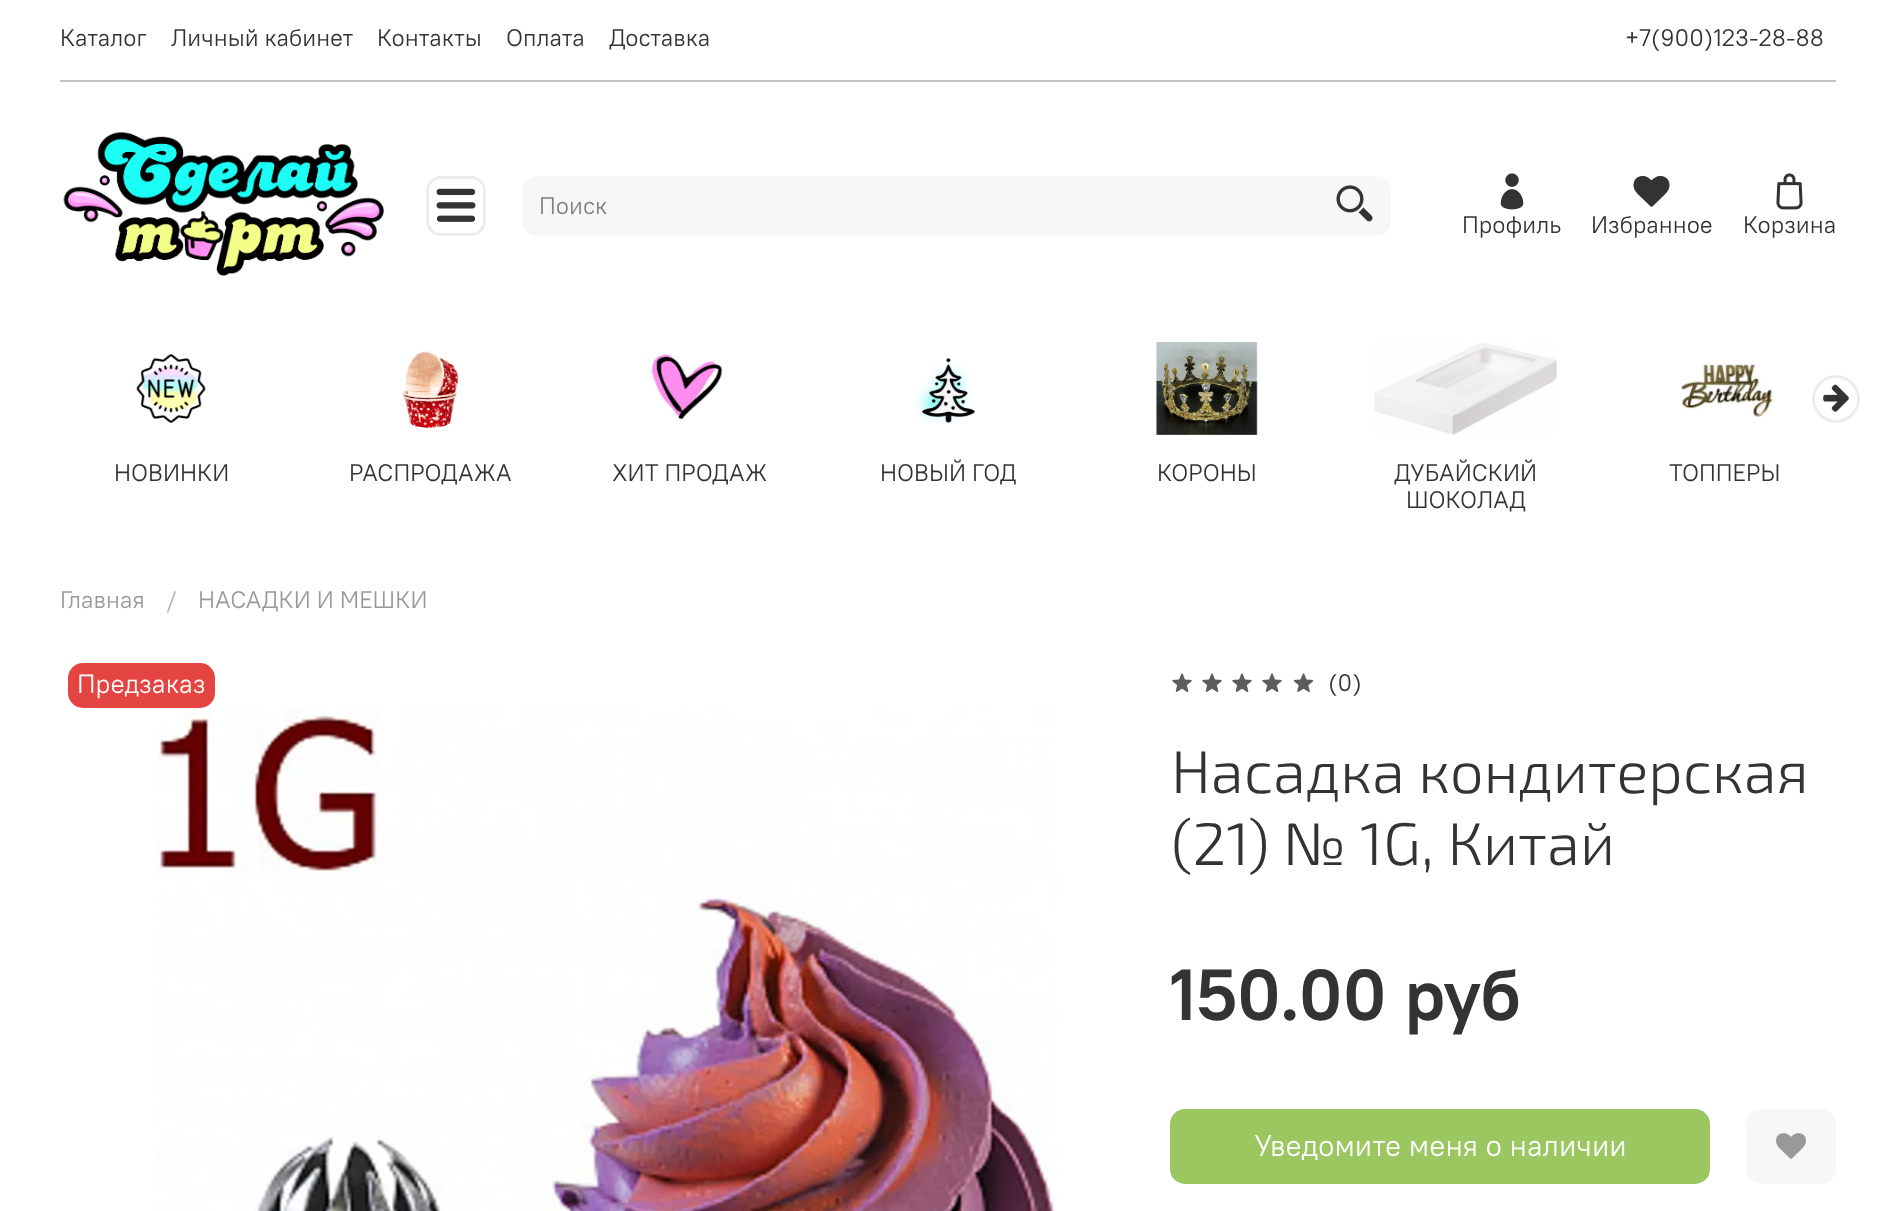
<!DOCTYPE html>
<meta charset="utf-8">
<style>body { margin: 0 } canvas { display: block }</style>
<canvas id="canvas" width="1896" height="1211"></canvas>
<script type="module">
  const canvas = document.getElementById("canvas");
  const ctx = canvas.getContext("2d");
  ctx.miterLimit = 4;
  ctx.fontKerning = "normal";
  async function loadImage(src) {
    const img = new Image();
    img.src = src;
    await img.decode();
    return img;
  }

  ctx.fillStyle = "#ffffff";
  ctx.fillRect(0, 0, 1896, 1211);
  ctx.font = "24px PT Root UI";
  ctx.fillStyle = "#333333";
  ctx.fillText("Каталог", 60, 46);
  ctx.fillText("Личный кабинет", 171, 46);
  ctx.fillText("Контакты", 377, 46);
  ctx.fillText("Оплата", 506, 46);
  ctx.fillText("Доставка", 609, 46);
  ctx.fillText("+7(900)123-28-88", 1625, 46);
  ctx.fillStyle = "#c2c2c2";
  ctx.fillRect(60, 80, 1776, 2);
  ctx.drawImage(await loadImage("img1.png"), 63, 132, 321, 144);
  ctx.beginPath();
  ctx.roundRect(427.5, 177.5, 57, 57, 13.5);
  ctx.strokeStyle = "#ededed";
  ctx.lineWidth = 3;
  ctx.stroke();
  ctx.drawImage(await loadImage("img2.png"), 436, 188, 40, 34);
  ctx.fillStyle = "#f7f7f7";
  ctx.beginPath();
  ctx.roundRect(522, 176, 869, 60, 15);
  ctx.fill();
  ctx.fillStyle = "#808080";
  ctx.fillText("Поиск", 539, 214);
  ctx.drawImage(await loadImage("img3.png"), 1336, 185, 37, 37);
  ctx.drawImage(await loadImage("img4.png"), 1500, 173, 24, 37);
  ctx.fillStyle = "#333333";
  ctx.fillText("Профиль", 1462, 233);
  ctx.drawImage(await loadImage("img5.png"), 1633, 176, 37, 31);
  ctx.fillText("Избранное", 1591, 233);
  ctx.drawImage(await loadImage("img6.png"), 1776, 173, 27, 37);
  ctx.fillText("Корзина", 1743, 233);
  ctx.beginPath();
  ctx.arc(1836, 399, 22.5, 0, Math.PI * 2);
  ctx.stroke();
  ctx.drawImage(await loadImage("img7.png"), 1823, 384, 26, 28);
  ctx.drawImage(await loadImage("img8.png"), 136, 354, 70, 69);
  ctx.fillText("НОВИНКИ", 114, 481);
  ctx.drawImage(await loadImage("img9.png"), 402, 351, 57, 78);
  ctx.fillText("РАСПРОДАЖА", 349, 481);
  ctx.drawImage(await loadImage("img10.png"), 651, 353, 72, 67);
  ctx.fillText("ХИТ ПРОДАЖ", 612, 481);
  ctx.drawImage(await loadImage("img11.png"), 914, 358, 62, 67);
  ctx.fillText("НОВЫЙ ГОД", 880, 481);
  ctx.drawImage(await loadImage("img12.png"), 1156, 342, 102, 93);
  ctx.fillText("КОРОНЫ", 1157, 481);
  ctx.drawImage(await loadImage("img13.png"), 1374, 342, 183, 93);
  ctx.fillText("ДУБАЙСКИЙ", 1394, 481);
  ctx.fillText("ШОКОЛАД", 1406, 508);
  ctx.drawImage(await loadImage("img14.png"), 1680, 362, 94, 55);
  ctx.fillText("ТОППЕРЫ", 1669, 481);
  ctx.fillStyle = "#999999";
  ctx.fillText("Главная", 60, 608);
  ctx.fillStyle = "#b8b8b8";
  ctx.fillText("/", 166, 608);
  ctx.fillStyle = "#999999";
  ctx.fillText("НАСАДКИ И МЕШКИ", 198, 608);
  ctx.drawImage(await loadImage("img15.png"), 157, 706, 900, 505);
  ctx.fillStyle = "#e44542";
  ctx.beginPath();
  ctx.roundRect(68, 663, 147, 45, 15);
  ctx.fill();
  ctx.font = "26.5px PT Root UI";
  ctx.fillStyle = "#ffffff";
  ctx.fillText("Предзаказ", 77, 693);
  ctx.drawImage(await loadImage("img16.png"), 1172, 673, 20, 19);
  ctx.drawImage(await loadImage("img16.png"), 1202, 673, 20, 19);
  ctx.drawImage(await loadImage("img16.png"), 1232, 673, 20, 19);
  ctx.drawImage(await loadImage("img16.png"), 1262, 673, 20, 19);
  ctx.drawImage(await loadImage("img17.png"), 1293, 673, 21, 19);
  ctx.font = "24px PT Root UI";
  ctx.fillStyle = "#333333";
  ctx.fillText("(0)", 1328, 691);
  ctx.font = "300 60px 'Exo 2'";
  ctx.fillText("Насадка кондитерская", 1171, 793);
  ctx.fillText("(21) № 1G, Китай", 1171, 865);
  ctx.font = "bold 72px PT Root UI";
  ctx.fillText("150.00 руб", 1171, 1020);
  ctx.fillStyle = "#9bc761";
  ctx.beginPath();
  ctx.roundRect(1170, 1109, 540, 75, 15);
  ctx.fill();
  ctx.font = "30px PT Root UI";
  ctx.fillStyle = "#ffffff";
  ctx.fillText("Уведомите меня о наличии", 1254, 1156);
  ctx.fillStyle = "#f7f7f7";
  ctx.beginPath();
  ctx.roundRect(1746, 1109, 90, 75, 15);
  ctx.fill();
  ctx.drawImage(await loadImage("img18.png"), 1776, 1133, 30, 26);
</script>
